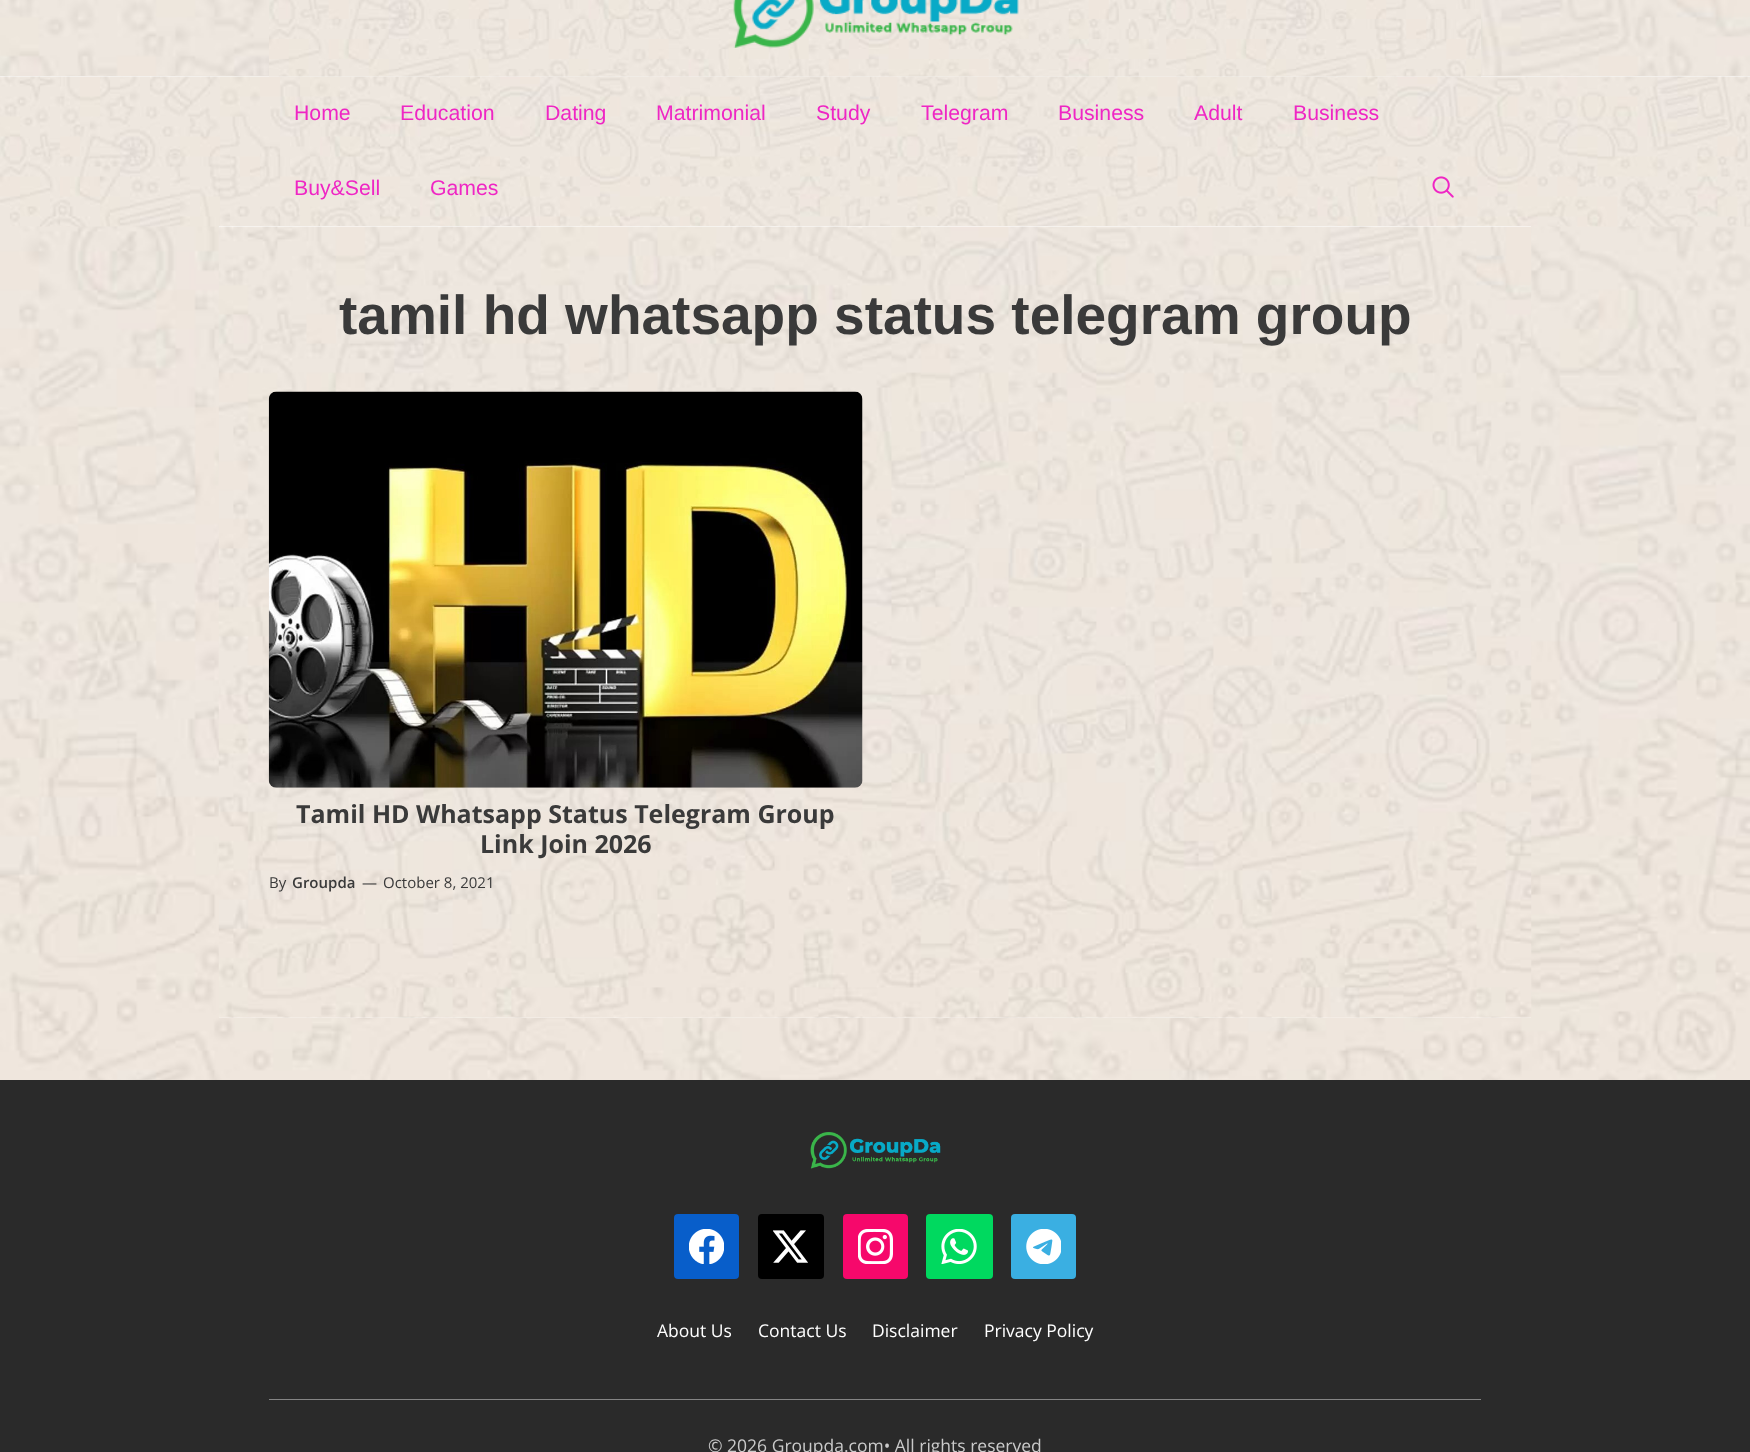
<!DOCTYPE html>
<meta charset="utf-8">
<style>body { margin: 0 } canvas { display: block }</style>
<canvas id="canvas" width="1750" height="1452"></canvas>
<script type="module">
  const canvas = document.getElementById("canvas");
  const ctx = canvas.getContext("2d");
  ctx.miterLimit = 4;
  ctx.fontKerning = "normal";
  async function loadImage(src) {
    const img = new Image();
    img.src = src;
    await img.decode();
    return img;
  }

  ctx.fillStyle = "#ffffff";
  ctx.fillRect(0, 0, 1750, 1452);
  ctx.drawImage(await loadImage("img1.png"), 0, 0, 1750, 1080);
  ctx.fillStyle = "#f9f9f9";
  ctx.fillRect(0, 76, 1750, 1);
  ctx.drawImage(await loadImage("img4.png"), 0, 76, 1750, 151);
  ctx.drawImage(await loadImage("img2.png"), 269, 0, 1212, 77);
  ctx.drawImage(await loadImage("img3.png"), 733, 0, 286, 48);
  ctx.font = "21.25px Liberation Sans";
  ctx.fillStyle = "#ef26c4";
  ctx.fillText("Home", 294, 120);
  ctx.fillText("Education", 400, 120);
  ctx.fillText("Dating", 545, 120);
  ctx.fillText("Matrimonial", 656, 120);
  ctx.fillText("Study", 816, 120);
  ctx.fillText("Telegram", 921, 120);
  ctx.fillText("Business", 1058, 120);
  ctx.fillText("Adult", 1194, 120);
  ctx.fillText("Business", 1293, 120);
  ctx.fillText("Buy&Sell", 294, 195);
  ctx.fillText("Games", 430, 195);
  ctx.drawImage(await loadImage("img5.png"), 1432, 176, 22, 22);
  ctx.fillStyle = "#ffffff";
  ctx.fillRect(219, 226, 1312, 792);
  ctx.drawImage(await loadImage("img6.png"), 218, 226, 1314, 792);
  ctx.font = "bold 55px Liberation Sans";
  ctx.fillStyle = "#3a3a3a";
  ctx.fillText("tamil hd whatsapp status telegram group", 339, 334);
  ctx.drawImage(await loadImage("img7.png"), 268, 391, 595, 397);
  ctx.font = "bold 25px Open Sans";
  ctx.fillText("Tamil HD Whatsapp Status Telegram Group", 296, 823);
  ctx.fillText("Link Join 2026", 480, 853);
  ctx.font = "15px Open Sans";
  ctx.fillText("By", 269, 888);
  ctx.font = "600 15px Open Sans";
  ctx.fillText("Groupda", 292, 888);
  ctx.font = "15px Open Sans";
  ctx.fillText("—", 362, 888);
  ctx.fillText("October 8, 2021", 383, 888);
  ctx.fillStyle = "#2a2a2a";
  ctx.fillRect(0, 1080, 1750, 372);
  ctx.fillStyle = "#858585";
  ctx.fillRect(269, 1399, 1212, 1);
  ctx.drawImage(await loadImage("img8.png"), 810, 1132, 131, 37);
  ctx.fillStyle = "#085eca";
  ctx.beginPath();
  ctx.roundRect(674, 1214, 65, 65, 4);
  ctx.fill();
  ctx.drawImage(await loadImage("img9.png"), 689, 1229, 35, 35);
  ctx.fillStyle = "#000000";
  ctx.beginPath();
  ctx.roundRect(758, 1214, 66, 65, 4);
  ctx.fill();
  ctx.drawImage(await loadImage("img10.png"), 773, 1230, 35, 33);
  ctx.fillStyle = "#f6086b";
  ctx.beginPath();
  ctx.roundRect(843, 1214, 65, 65, 4);
  ctx.fill();
  ctx.drawImage(await loadImage("img11.png"), 858, 1229, 35, 35);
  ctx.fillStyle = "#00d95f";
  ctx.beginPath();
  ctx.roundRect(926, 1214, 67, 65, 4);
  ctx.fill();
  ctx.drawImage(await loadImage("img12.png"), 941, 1229, 36, 35);
  ctx.fillStyle = "#3aafe2";
  ctx.beginPath();
  ctx.roundRect(1011, 1214, 65, 65, 4);
  ctx.fill();
  ctx.drawImage(await loadImage("img13.png"), 1026, 1229, 35, 35);
  ctx.font = "17.5px Open Sans";
  ctx.fillStyle = "#ffffff";
  ctx.fillText("About Us", 657, 1337);
  ctx.fillText("Contact Us", 758, 1337);
  ctx.fillText("Disclaimer", 872, 1337);
  ctx.fillText("Privacy Policy", 984, 1337);
  ctx.fillStyle = "#cacaca";
  ctx.fillText("© 2026 Groupda.com• All rights reserved", 708, 1452);
</script>
